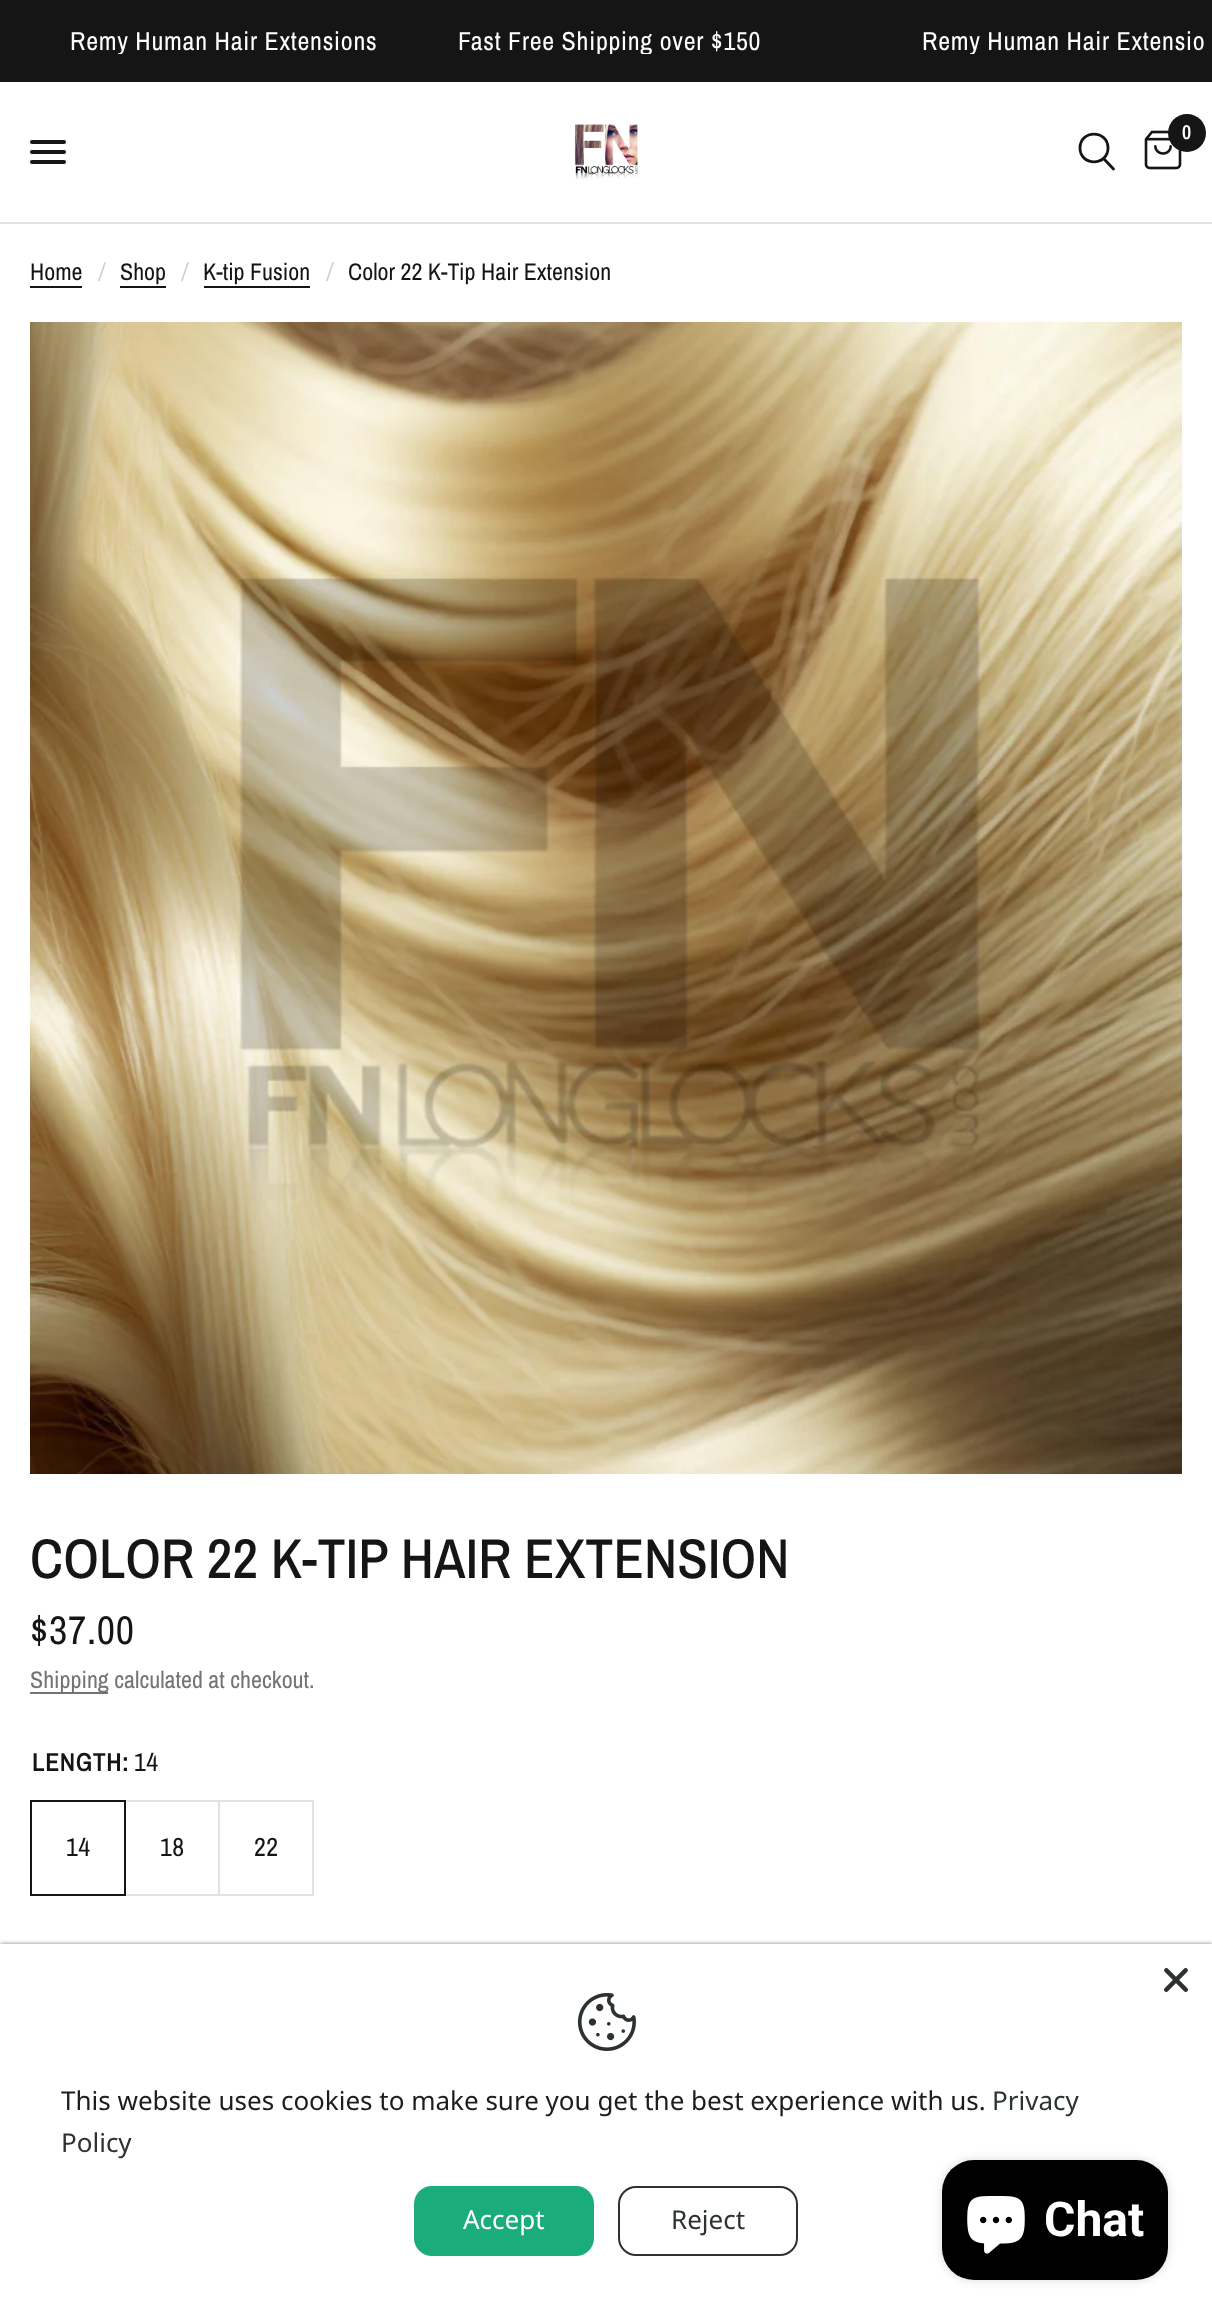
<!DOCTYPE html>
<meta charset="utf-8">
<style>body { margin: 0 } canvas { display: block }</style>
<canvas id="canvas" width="1212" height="2322"></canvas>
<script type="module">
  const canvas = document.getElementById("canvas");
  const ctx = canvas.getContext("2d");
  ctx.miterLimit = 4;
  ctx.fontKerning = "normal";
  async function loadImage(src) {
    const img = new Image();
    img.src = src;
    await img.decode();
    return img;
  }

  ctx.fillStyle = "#ffffff";
  ctx.fillRect(0, 0, 1212, 2322);
  ctx.fillStyle = "#151515";
  ctx.fillRect(0, 0, 1212, 82);
  ctx.save();
  ctx.beginPath();
  ctx.rect(0, 28, 1212, 26);
  ctx.clip();
  ctx.letterSpacing = "0.75px";
  ctx.font = "26px Archivo Narrow";
  ctx.fillStyle = "#ffffff";
  ctx.fillText("Remy Human Hair Extensions", 70, 50);
  ctx.fillText("Fast Free Shipping over $150", 458, 50);
  ctx.fillText("Remy Human Hair Extensio", 922, 50);
  ctx.restore();
  ctx.fillStyle = "#e2e2e2";
  ctx.fillRect(0, 222, 1212, 2);
  ctx.drawImage(await loadImage("img1.png"), 574, 124, 64, 56);
  ctx.beginPath();
  ctx.moveTo(1104, 159);
  ctx.lineTo(1113.5, 169);
  ctx.moveTo(1108, 148);
  ctx.bezierCurveTo(1108, 166.5, 1080, 166.5, 1080, 148);
  ctx.bezierCurveTo(1080, 129.5, 1108, 129.5, 1108, 148);
  ctx.closePath();
  ctx.strokeStyle = "#151515";
  ctx.lineWidth = 2.8;
  ctx.lineCap = "round";
  ctx.lineJoin = "round";
  ctx.stroke();
  ctx.drawImage(await loadImage("img2.png"), 1144, 130, 38, 40);
  ctx.fillStyle = "#151515";
  ctx.beginPath();
  ctx.arc(1187, 133, 19, 0, Math.PI * 2);
  ctx.fill();
  ctx.font = "600 20px Archivo Narrow";
  ctx.fillStyle = "#ffffff";
  ctx.fillText("0", 1182, 139);
  ctx.fillStyle = "#151515";
  ctx.beginPath();
  ctx.roundRect(30, 140, 36, 4, 2);
  ctx.fill();
  ctx.beginPath();
  ctx.roundRect(30, 150, 36, 4, 2);
  ctx.fill();
  ctx.beginPath();
  ctx.roundRect(30, 160, 36, 4, 2);
  ctx.fill();
  ctx.font = "24px Archivo Narrow";
  ctx.fillText("Home", 30, 280);
  ctx.fillRect(30, 286, 52, 2);
  ctx.font = "italic 24px Archivo Narrow";
  ctx.fillStyle = "#d0d0d0";
  ctx.fillText("/", 99, 280);
  ctx.font = "24px Archivo Narrow";
  ctx.fillStyle = "#151515";
  ctx.fillText("Shop", 120, 280);
  ctx.fillRect(120, 286, 46, 2);
  ctx.font = "italic 24px Archivo Narrow";
  ctx.fillStyle = "#d0d0d0";
  ctx.fillText("/", 182, 280);
  ctx.font = "24px Archivo Narrow";
  ctx.fillStyle = "#151515";
  ctx.fillText("K-tip Fusion", 203, 280);
  ctx.fillRect(204, 286, 106, 2);
  ctx.font = "italic 24px Archivo Narrow";
  ctx.fillStyle = "#d0d0d0";
  ctx.fillText("/", 327, 280);
  ctx.font = "24px Archivo Narrow";
  ctx.fillStyle = "#151515";
  ctx.fillText("Color 22 K-Tip Hair Extension", 348, 280);
  ctx.drawImage(await loadImage("img3.png"), 30, 322, 1152, 1152);
  ctx.font = "500 56px Archivo Narrow";
  ctx.fillText("COLOR 22 K-TIP HAIR EXTENSION", 30, 1578);
  ctx.letterSpacing = "0.75px";
  ctx.font = "40px Archivo Narrow";
  ctx.fillText("$37.00", 30, 1644);
  ctx.fillStyle = "#737373";
  ctx.fillRect(30, 1692, 78, 2);
  ctx.letterSpacing = "0px";
  ctx.font = "24px Archivo Narrow";
  ctx.fillText("Shipping calculated at checkout.", 30, 1688);
  ctx.letterSpacing = "0.5px";
  ctx.font = "600 26px Archivo Narrow";
  ctx.fillStyle = "#151515";
  ctx.fillText("LENGTH:", 32, 1771);
  ctx.font = "26px Archivo Narrow";
  ctx.fillText("14", 134, 1771);
  ctx.strokeStyle = "#e2e2e2";
  ctx.lineWidth = 2;
  ctx.lineJoin = "miter";
  ctx.strokeRect(125, 1801, 94, 94);
  ctx.strokeStyle = "#151515";
  ctx.strokeRect(31, 1801, 94, 94);
  ctx.fillText("14", 66, 1856);
  ctx.fillText("18", 160, 1856);
  ctx.strokeStyle = "#e2e2e2";
  ctx.strokeRect(219, 1801, 94, 94);
  ctx.fillText("22", 254, 1856);
  ctx.fillStyle = "rgba(0, 0, 0, 0.5)";
  ctx.filter = "blur(2px)";
  ctx.beginPath();
  ctx.rect(0, 1944, 1212, 378);
  ctx.fill();
  ctx.filter = "none";
  ctx.fillStyle = "#ffffff";
  ctx.fillRect(0, 1944, 1212, 378);
  ctx.drawImage(await loadImage("img4.png"), 1164, 1968, 24, 24);
  ctx.drawImage(await loadImage("img5.png"), 577, 1993, 59, 58);
  ctx.letterSpacing = "0px";
  ctx.font = "26px Noto Sans";
  ctx.fillStyle = "#1d1d1d";
  ctx.fillText("This website uses cookies to make sure you get the best experience with us.", 61, 2110);
  ctx.fillStyle = "#2c332f";
  ctx.fillText("Privacy", 992, 2110);
  ctx.fillText("Policy", 61, 2152);
  ctx.fillStyle = "#1aac7a";
  ctx.beginPath();
  ctx.roundRect(414, 2186, 180, 70, 18);
  ctx.fill();
  ctx.fillStyle = "#ffffff";
  ctx.fillText("Accept", 463, 2229);
  ctx.beginPath();
  ctx.roundRect(619, 2187, 178, 68, 17);
  ctx.strokeStyle = "#2c332f";
  ctx.stroke();
  ctx.fillStyle = "#2c332f";
  ctx.fillText("Reject", 671, 2229);
  ctx.fillStyle = "rgba(0, 0, 0, 0.15)";
  ctx.filter = "blur(5px)";
  ctx.beginPath();
  ctx.roundRect(942, 2160, 226, 120, 32);
  ctx.fill();
  ctx.filter = "none";
  ctx.fillStyle = "#000000";
  ctx.beginPath();
  ctx.roundRect(942, 2160, 226, 120, 32);
  ctx.fill();
  ctx.drawImage(await loadImage("img6.png"), 967, 2196, 58, 58);
  ctx.font = "bold 48px Roboto";
  ctx.fillStyle = "#ffffff";
  ctx.fillText("Chat", 1044, 2236);
</script>
